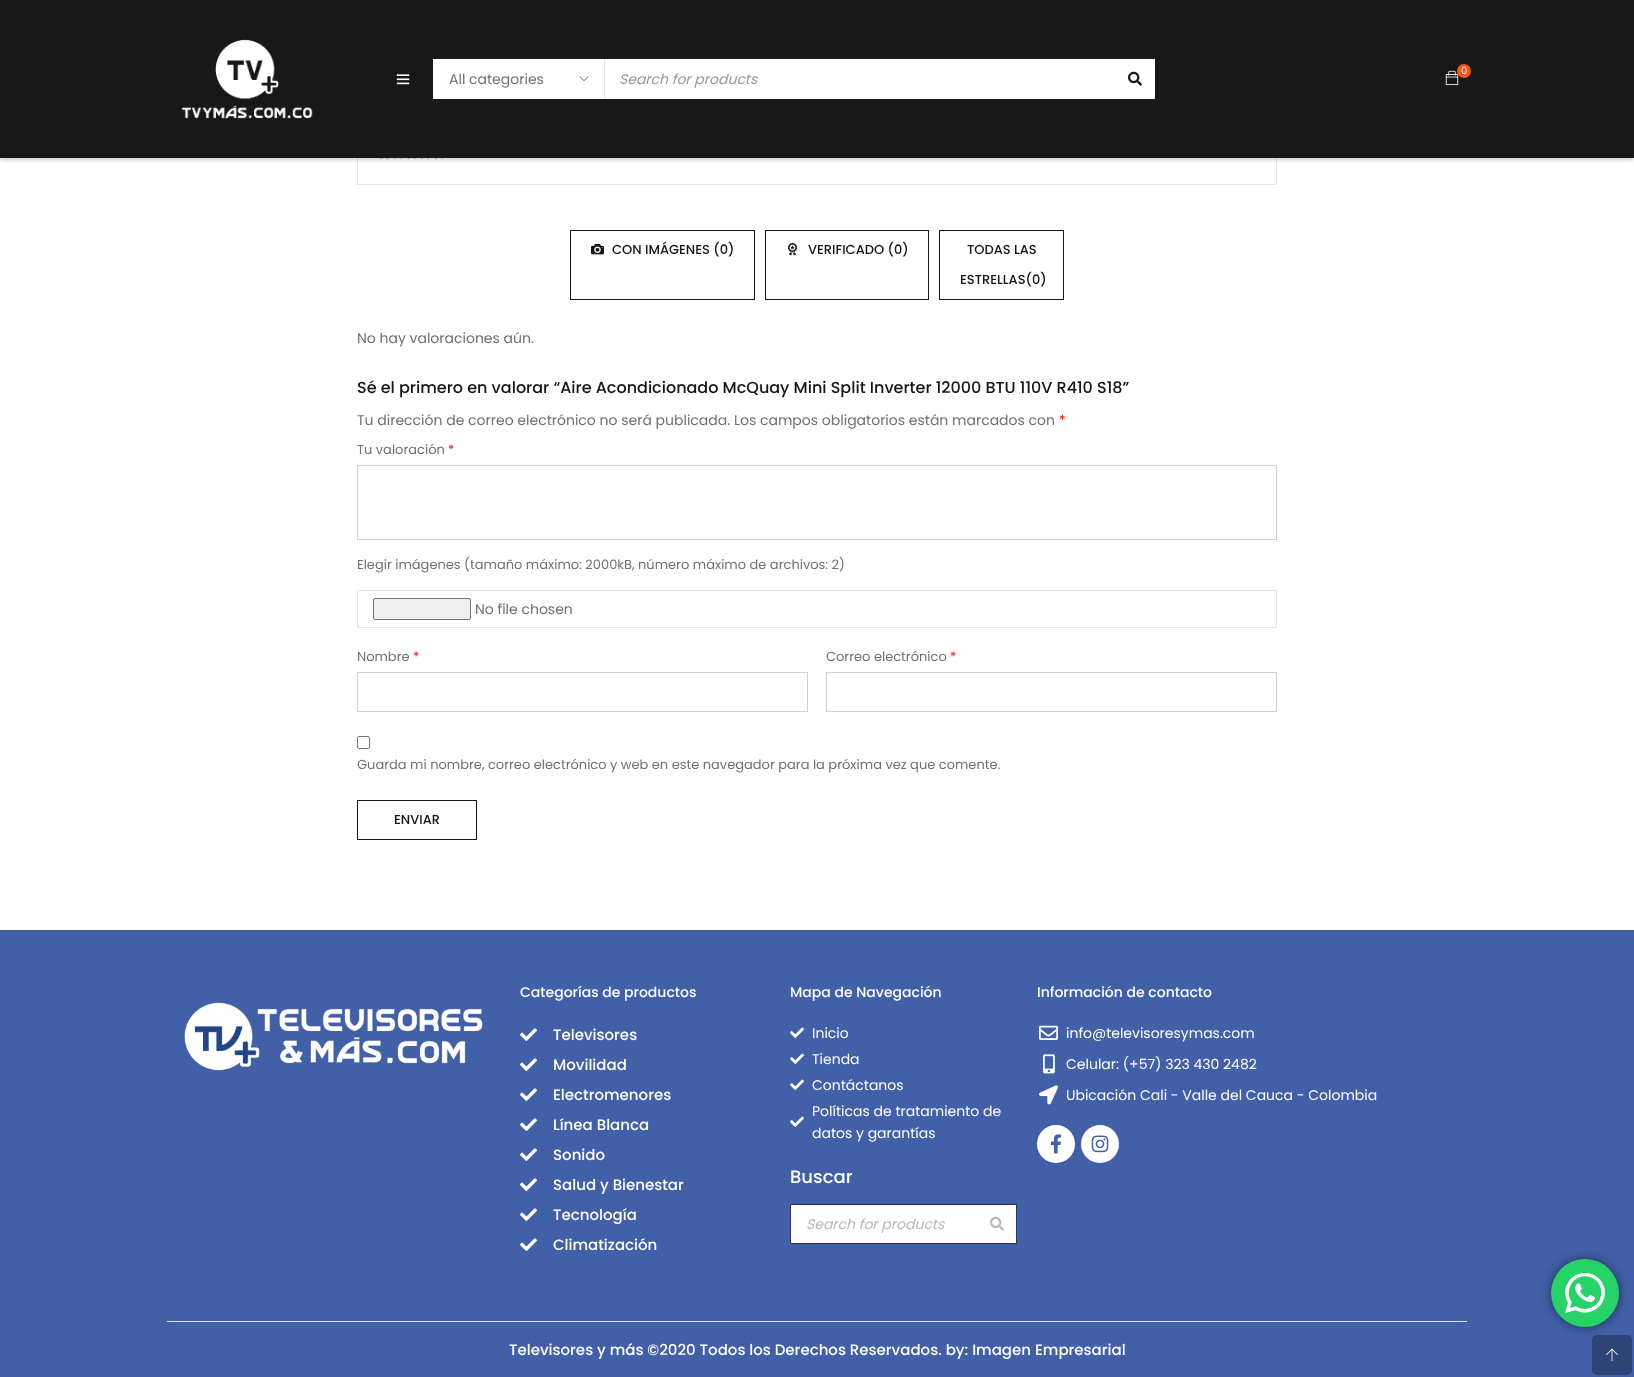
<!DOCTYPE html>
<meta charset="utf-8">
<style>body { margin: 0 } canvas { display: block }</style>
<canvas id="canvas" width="1634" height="1377"></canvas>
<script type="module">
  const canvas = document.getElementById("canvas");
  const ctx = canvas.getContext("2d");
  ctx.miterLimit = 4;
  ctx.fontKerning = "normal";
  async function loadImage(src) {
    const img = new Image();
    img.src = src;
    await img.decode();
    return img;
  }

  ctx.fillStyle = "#ffffff";
  ctx.fillRect(0, 0, 1634, 1377);
  ctx.strokeStyle = "#e5e5e5";
  ctx.strokeRect(357.5, 13.5, 919, 171);
  ctx.drawImage(await loadImage("img6.png"), 380, 158, 63, 2);
  ctx.drawImage(await loadImage("img7.png"), 380, 158, 9, 2);
  ctx.fillStyle = "rgba(0, 0, 0, 0.2)";
  ctx.filter = "blur(2px)";
  ctx.beginPath();
  ctx.rect(0, 2, 1634, 158);
  ctx.fill();
  ctx.filter = "none";
  ctx.fillStyle = "#181818";
  ctx.fillRect(0, 0, 1634, 158);
  ctx.drawImage(await loadImage("img1.png"), 181, 39, 132, 80);
  ctx.drawImage(await loadImage("img2.png"), 1445, 70, 14, 15);
  ctx.fillStyle = "#fd5219";
  ctx.beginPath();
  ctx.arc(1464, 71, 7, 0, Math.PI * 2);
  ctx.fill();
  ctx.font = "10px Poppins";
  ctx.fillStyle = "#ffffff";
  ctx.fillText("0", 1461, 74);
  ctx.drawImage(await loadImage("img3.png"), 396, 74, 14, 11);
  ctx.fillRect(433, 59, 722, 40);
  ctx.drawImage(await loadImage("img4.png"), 579, 76, 10, 5);
  ctx.font = "14px Poppins";
  ctx.fillStyle = "#707070";
  ctx.fillText("All categories", 449, 84);
  ctx.fillStyle = "#e5e5e5";
  ctx.fillRect(604, 59, 1, 40);
  ctx.font = "italic 14px Poppins";
  ctx.fillStyle = "#999999";
  ctx.fillText("Search for products", 619, 84);
  ctx.drawImage(await loadImage("img5.png"), 1128, 71, 14, 15);
  ctx.strokeStyle = "#161616";
  ctx.strokeRect(570.5, 230.5, 184, 69);
  ctx.drawImage(await loadImage("img8.png"), 591, 243, 13, 12);
  ctx.font = "500 13px Poppins";
  ctx.fillStyle = "#161616";
  ctx.fillText("CON IMÁGENES (0)", 612, 254);
  ctx.strokeRect(765.5, 230.5, 163, 69);
  ctx.drawImage(await loadImage("img9.png"), 787, 242, 11, 14);
  ctx.fillText("VERIFICADO (0)", 808, 254);
  ctx.strokeRect(939.5, 230.5, 124, 69);
  ctx.fillText("TODAS LAS", 967, 254);
  ctx.fillText("ESTRELLAS(0)", 960, 284);
  ctx.font = "14px Poppins";
  ctx.fillStyle = "#707070";
  ctx.fillText("No hay valoraciones aún.", 357, 343);
  ctx.font = "500 16px Poppins";
  ctx.fillStyle = "#161616";
  ctx.fillText("Sé el primero en valorar “Aire Acondicionado McQuay Mini Split Inverter 12000 BTU 110V R410 S18”", 357, 393);
  ctx.font = "14px Poppins";
  ctx.fillStyle = "#707070";
  ctx.fillText("Tu dirección de correo electrónico no será publicada. Los campos obligatorios están marcados con", 357, 425);
  ctx.fillStyle = "#ff0000";
  ctx.fillText("*", 1059, 425);
  ctx.font = "13px Poppins";
  ctx.fillStyle = "#707070";
  ctx.fillText("Tu valoración", 357, 454);
  ctx.fillStyle = "#ff0000";
  ctx.fillText("*", 448, 454);
  ctx.strokeStyle = "#d1d1d1";
  ctx.strokeRect(357.5, 465.5, 919, 74);
  ctx.fillStyle = "#707070";
  ctx.fillText("Elegir imágenes (tamaño máximo: 2000kB, número máximo de archivos: 2)", 357, 569);
  ctx.strokeStyle = "#e5e5e5";
  ctx.strokeRect(357.5, 590.5, 919, 37);
  ctx.fillStyle = "#efefef";
  ctx.beginPath();
  ctx.roundRect(373.5, 598.5, 97, 21, 1.5);
  ctx.fill();
  ctx.strokeStyle = "#767676";
  ctx.stroke();
  ctx.font = "14px Poppins";
  ctx.fillStyle = "#707070";
  ctx.fillText("No file chosen", 475, 614);
  ctx.font = "13px Poppins";
  ctx.fillText("Nombre", 357, 661);
  ctx.fillStyle = "#ff0000";
  ctx.fillText("*", 413, 661);
  ctx.strokeStyle = "#d1d1d1";
  ctx.strokeRect(357.5, 672.5, 450, 39);
  ctx.fillStyle = "#707070";
  ctx.fillText("Correo electrónico", 826, 661);
  ctx.fillStyle = "#ff0000";
  ctx.fillText("*", 950, 661);
  ctx.strokeRect(826.5, 672.5, 450, 39);
  ctx.beginPath();
  ctx.roundRect(357.5, 736.5, 12, 12, 1.5);
  ctx.strokeStyle = "#767676";
  ctx.stroke();
  ctx.fillStyle = "#707070";
  ctx.fillText("Guarda mi nombre, correo electrónico y web en este navegador para la próxima vez que comente.", 357, 769);
  ctx.strokeStyle = "#161616";
  ctx.strokeRect(357.5, 800.5, 119, 39);
  ctx.font = "500 13px Poppins";
  ctx.fillStyle = "#161616";
  ctx.fillText("ENVIAR", 394, 824);
  ctx.fillStyle = "#4260a8";
  ctx.fillRect(0, 930, 1634, 447);
  ctx.drawImage(await loadImage("img10.png"), 184, 1002, 299, 69);
  ctx.font = "500 14px Poppins";
  ctx.fillStyle = "#ffffff";
  ctx.fillText("Categorías de productos", 520, 997);
  ctx.drawImage(await loadImage("img11.png"), 520, 1028, 17, 13);
  ctx.font = "500 15px Poppins";
  ctx.fillText("Televisores", 553, 1040);
  ctx.drawImage(await loadImage("img11.png"), 520, 1058, 17, 13);
  ctx.fillText("Movilidad", 553, 1070);
  ctx.drawImage(await loadImage("img11.png"), 520, 1088, 17, 13);
  ctx.fillText("Electromenores", 553, 1100);
  ctx.drawImage(await loadImage("img11.png"), 520, 1118, 17, 13);
  ctx.fillText("Línea Blanca", 553, 1130);
  ctx.drawImage(await loadImage("img11.png"), 520, 1148, 17, 13);
  ctx.fillText("Sonido", 553, 1160);
  ctx.drawImage(await loadImage("img11.png"), 520, 1178, 17, 13);
  ctx.fillText("Salud y Bienestar", 553, 1190);
  ctx.drawImage(await loadImage("img11.png"), 520, 1208, 17, 13);
  ctx.fillText("Tecnología", 553, 1220);
  ctx.drawImage(await loadImage("img11.png"), 520, 1238, 17, 13);
  ctx.fillText("Climatización", 553, 1250);
  ctx.font = "500 14px Poppins";
  ctx.fillText("Mapa de Navegación", 790, 997);
  ctx.drawImage(await loadImage("img12.png"), 790, 1027, 14, 11);
  ctx.font = "14px Poppins";
  ctx.fillText("Inicio", 812, 1038);
  ctx.drawImage(await loadImage("img12.png"), 790, 1053, 14, 11);
  ctx.fillText("Tienda", 812, 1064);
  ctx.drawImage(await loadImage("img12.png"), 790, 1079, 14, 11);
  ctx.fillText("Contáctanos", 812, 1090);
  ctx.drawImage(await loadImage("img12.png"), 790, 1116, 14, 11);
  ctx.fillText("Políticas de tratamiento de", 812, 1116);
  ctx.fillText("datos y garantías", 812, 1138);
  ctx.font = "500 18px Poppins";
  ctx.fillText("Buscar", 790, 1183);
  ctx.beginPath();
  ctx.rect(790.5, 1204.5, 226, 39);
  ctx.fill();
  ctx.strokeStyle = "#2b364a";
  ctx.stroke();
  ctx.font = "italic 14px Poppins";
  ctx.fillStyle = "#b8b8b8";
  ctx.fillText("Search for products", 806, 1229);
  ctx.drawImage(await loadImage("img13.png"), 990, 1216, 14, 15);
  ctx.font = "500 14px Poppins";
  ctx.fillStyle = "#ffffff";
  ctx.fillText("Información de contacto", 1037, 997);
  ctx.drawImage(await loadImage("img14.png"), 1039, 1025, 19, 15);
  ctx.font = "14px Poppins";
  ctx.fillText("info@televisoresymas.com", 1066, 1038);
  ctx.drawImage(await loadImage("img15.png"), 1043, 1054, 12, 20);
  ctx.fillText("Celular: (+57) 323 430 2482", 1066, 1069);
  ctx.drawImage(await loadImage("img16.png"), 1039, 1085, 19, 20);
  ctx.fillText("Ubicación Cali - Valle del Cauca - Colombia", 1066, 1100);
  ctx.beginPath();
  ctx.arc(1056, 1144, 19, 0, Math.PI * 2);
  ctx.fill();
  ctx.drawImage(await loadImage("img17.png"), 1050, 1134, 12, 20);
  ctx.beginPath();
  ctx.arc(1100, 1144, 19, 0, Math.PI * 2);
  ctx.fill();
  ctx.drawImage(await loadImage("img18.png"), 1091, 1135, 18, 18);
  ctx.fillStyle = "#e5e5e5";
  ctx.fillRect(167, 1321, 1300, 1);
  ctx.font = "500 15px Poppins";
  ctx.fillStyle = "#ffffff";
  ctx.fillText("Televisores y más ©2020 Todos los Derechos Reservados. by: Imagen Empresarial", 509, 1355);
  ctx.fillStyle = "#2e4376";
  ctx.beginPath();
  ctx.roundRect(1592, 1335, 40, 40, 5);
  ctx.fill();
  ctx.fillStyle = "rgba(0, 0, 0, 0.5)";
  ctx.filter = "blur(5.5px)";
  ctx.beginPath();
  ctx.roundRect(1551, 1259, 68, 68, 34);
  ctx.fill();
  ctx.filter = "none";
  ctx.fillStyle = "#25d366";
  ctx.beginPath();
  ctx.arc(1585, 1293, 34, 0, Math.PI * 2);
  ctx.fill();
  ctx.drawImage(await loadImage("img19.png"), 1565, 1273, 40, 40);
  ctx.drawImage(await loadImage("img20.png"), 1606, 1348, 12, 14);
</script>
